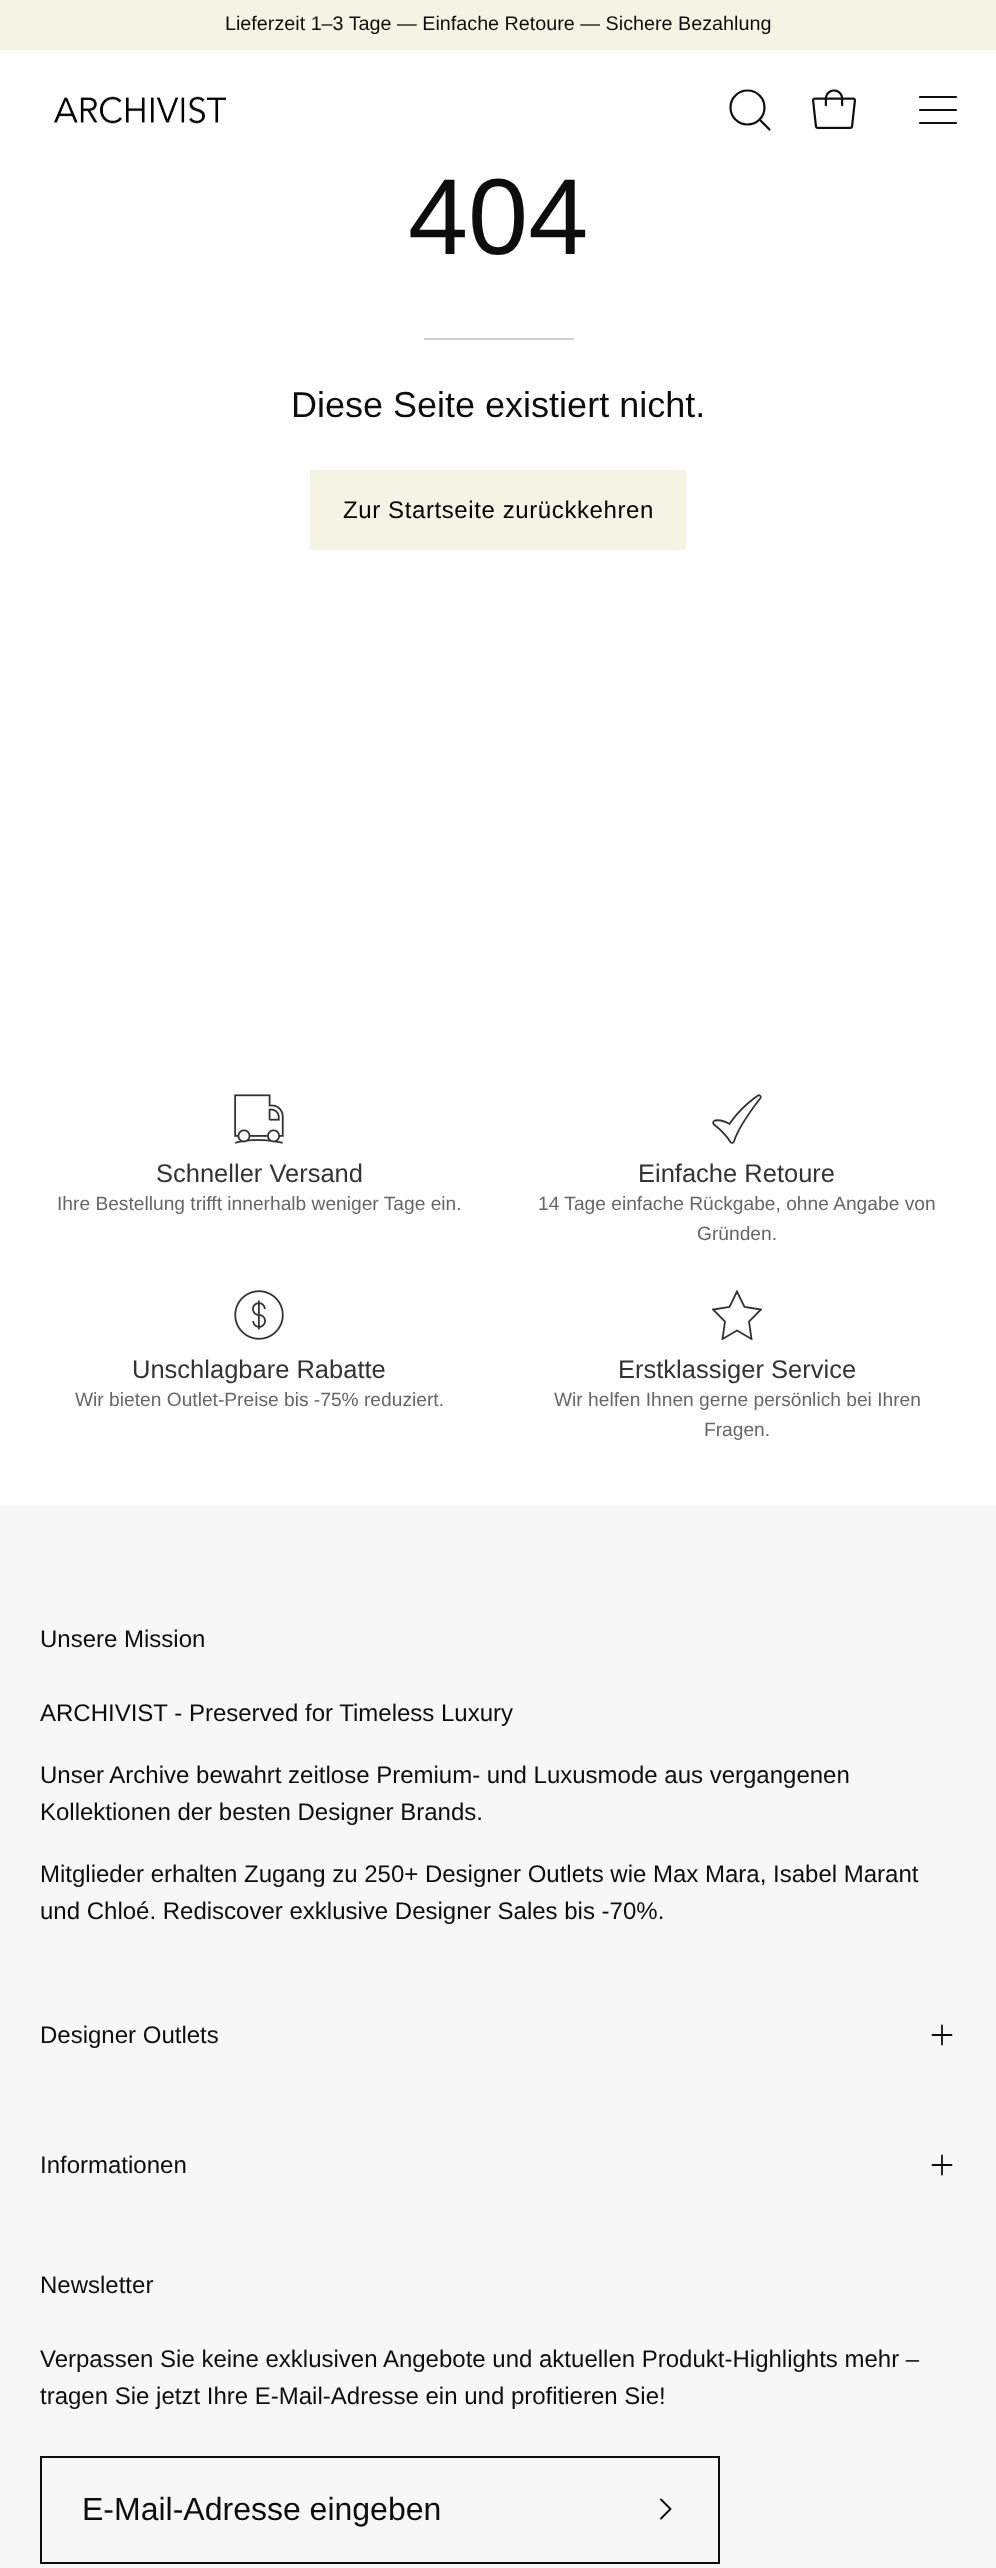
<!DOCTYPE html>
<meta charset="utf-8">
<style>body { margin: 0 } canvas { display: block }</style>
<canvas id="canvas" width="996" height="2568"></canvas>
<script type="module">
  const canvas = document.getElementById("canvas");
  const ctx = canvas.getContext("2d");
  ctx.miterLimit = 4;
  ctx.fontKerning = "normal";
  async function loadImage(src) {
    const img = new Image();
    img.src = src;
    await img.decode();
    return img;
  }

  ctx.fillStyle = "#ffffff";
  ctx.fillRect(0, 0, 996, 2568);
  ctx.fillStyle = "#f5f3e3";
  ctx.fillRect(0, 0, 996, 50);
  ctx.font = "19.75px Liberation Sans";
  ctx.fillStyle = "#0d0d0d";
  ctx.fillText("Lieferzeit 1–3 Tage", 225, 30);
  ctx.fillText("— Einfache Retoure — Sichere Bezahlung", 397, 30);
  ctx.drawImage(await loadImage("img1.png"), 54, 96, 172, 28);
  ctx.beginPath();
  ctx.moveTo(747.5, 124.5);
  ctx.bezierCurveTo(757, 124.5, 764.5, 117, 764.5, 107.5);
  ctx.bezierCurveTo(764.5, 98, 757, 90.5, 747.5, 90.5);
  ctx.bezierCurveTo(738, 90.5, 730.5, 98, 730.5, 107.5);
  ctx.bezierCurveTo(730.5, 117, 738, 124.5, 747.5, 124.5);
  ctx.closePath();
  ctx.moveTo(759.5, 119.5);
  ctx.lineTo(769.5, 129.5);
  ctx.strokeStyle = "#0d0d0d";
  ctx.lineWidth = 2.2;
  ctx.lineCap = "round";
  ctx.lineJoin = "round";
  ctx.stroke();
  ctx.drawImage(await loadImage("img2.png"), 812, 89, 44, 40);
  ctx.beginPath();
  ctx.moveTo(920, 110);
  ctx.lineTo(956, 110);
  ctx.moveTo(920, 97);
  ctx.lineTo(956, 97);
  ctx.moveTo(920, 123);
  ctx.lineTo(956, 123);
  ctx.stroke();
  ctx.font = "108px Liberation Sans";
  ctx.fillText("404", 408, 254);
  ctx.fillStyle = "#d2d0cc";
  ctx.fillRect(424, 338, 150, 2);
  ctx.font = "36px Liberation Sans";
  ctx.fillStyle = "#0d0d0d";
  ctx.fillText("Diese Seite existiert nicht.", 291, 417);
  ctx.fillStyle = "#f5f3e3";
  ctx.fillRect(310, 470, 376, 80);
  ctx.letterSpacing = "0.6px";
  ctx.font = "24px Liberation Sans";
  ctx.fillStyle = "#000000";
  ctx.fillText("Zur Startseite zurückkehren", 343, 518);
  ctx.drawImage(await loadImage("img3.png"), 234, 1094, 50, 50);
  ctx.letterSpacing = "0px";
  ctx.font = "25.5px Liberation Sans";
  ctx.fillStyle = "#333333";
  ctx.fillText("Schneller Versand", 156, 1182);
  ctx.font = "19.2px Liberation Sans";
  ctx.fillStyle = "#666666";
  ctx.fillText("Ihre Bestellung trifft innerhalb weniger Tage ein.", 57, 1210);
  ctx.beginPath();
  ctx.moveTo(729.5, 1124);
  ctx.bezierCurveTo(729.5, 1124, 739, 1108.5, 758, 1095.5);
  ctx.bezierCurveTo(759.5, 1094.5, 761.5, 1096.5, 760.5, 1098);
  ctx.bezierCurveTo(752, 1109, 738, 1128.5, 734, 1141.5);
  ctx.bezierCurveTo(733.5, 1143, 731.5, 1143.5, 730.5, 1142);
  ctx.bezierCurveTo(727.5, 1137.5, 722.5, 1131, 714, 1124.5);
  ctx.bezierCurveTo(712.5, 1123, 713, 1121, 715, 1120.5);
  ctx.bezierCurveTo(718, 1120, 723, 1120, 729.5, 1124);
  ctx.closePath();
  ctx.strokeStyle = "#333333";
  ctx.lineWidth = 1.8;
  ctx.lineCap = "butt";
  ctx.lineJoin = "miter";
  ctx.stroke();
  ctx.font = "25.5px Liberation Sans";
  ctx.fillStyle = "#333333";
  ctx.fillText("Einfache Retoure", 638, 1182);
  ctx.font = "19.2px Liberation Sans";
  ctx.fillStyle = "#666666";
  ctx.fillText("14 Tage einfache Rückgabe, ohne Angabe von", 538, 1210);
  ctx.fillText("Gründen.", 697, 1240);
  ctx.drawImage(await loadImage("img4.png"), 234, 1290, 50, 50);
  ctx.font = "25.5px Liberation Sans";
  ctx.fillStyle = "#333333";
  ctx.fillText("Unschlagbare Rabatte", 132, 1378);
  ctx.font = "19.2px Liberation Sans";
  ctx.fillStyle = "#666666";
  ctx.fillText("Wir bieten Outlet-Preise bis -75% reduziert.", 75, 1406);
  ctx.save();
  ctx.beginPath();
  ctx.rect(712, 1290, 50, 50);
  ctx.clip();
  ctx.beginPath();
  ctx.moveTo(737, 1330.5);
  ctx.lineTo(751.5, 1339);
  ctx.lineTo(749, 1321.5);
  ctx.lineTo(761, 1309.5);
  ctx.lineTo(744.5, 1307);
  ctx.lineTo(737, 1291.5);
  ctx.lineTo(729.5, 1307);
  ctx.lineTo(713, 1309.5);
  ctx.lineTo(725, 1321.5);
  ctx.lineTo(722.5, 1339);
  ctx.closePath();
  ctx.stroke();
  ctx.restore();
  ctx.font = "25.5px Liberation Sans";
  ctx.fillStyle = "#333333";
  ctx.fillText("Erstklassiger Service", 618, 1378);
  ctx.font = "19.2px Liberation Sans";
  ctx.fillStyle = "#666666";
  ctx.fillText("Wir helfen Ihnen gerne persönlich bei Ihren", 554, 1406);
  ctx.fillText("Fragen.", 704, 1436);
  ctx.fillStyle = "#f7f7f7";
  ctx.fillRect(0, 1506, 996, 1062);
  ctx.font = "24px Liberation Sans";
  ctx.fillStyle = "#0d0d0d";
  ctx.fillText("Unsere Mission", 40, 1647);
  ctx.fillText("ARCHIVIST - Preserved for Timeless Luxury", 40, 1721);
  ctx.fillText("Unser Archive bewahrt zeitlose Premium- und Luxusmode aus vergangenen", 40, 1783);
  ctx.fillText("Kollektionen der besten Designer Brands.", 40, 1820);
  ctx.fillText("Mitglieder erhalten Zugang zu 250+ Designer Outlets wie Max Mara, Isabel Marant", 40, 1882);
  ctx.fillText("und Chloé. Rediscover exklusive Designer Sales bis -70%.", 40, 1919);
  ctx.fillText("Designer Outlets", 40, 2043);
  ctx.beginPath();
  ctx.moveTo(932.5, 2035);
  ctx.lineTo(951.5, 2035);
  ctx.moveTo(942, 2025.5);
  ctx.lineTo(942, 2044.5);
  ctx.strokeStyle = "#0d0d0d";
  ctx.lineCap = "round";
  ctx.lineJoin = "round";
  ctx.stroke();
  ctx.fillText("Informationen", 40, 2173);
  ctx.beginPath();
  ctx.moveTo(932.5, 2165);
  ctx.lineTo(951.5, 2165);
  ctx.moveTo(942, 2155.5);
  ctx.lineTo(942, 2174.5);
  ctx.stroke();
  ctx.fillText("Newsletter", 40, 2293);
  ctx.fillText("Verpassen Sie keine exklusiven Angebote und aktuellen Produkt-Highlights mehr –", 40, 2367);
  ctx.fillText("tragen Sie jetzt Ihre E-Mail-Adresse ein und profitieren Sie!", 40, 2404);
  ctx.fillRect(40, 2456, 680, 2);
  ctx.fillRect(40, 2562, 572, 2);
  ctx.fillRect(40, 2456, 2, 108);
  ctx.font = "32px Liberation Sans";
  ctx.fillText("E-Mail-Adresse eingeben", 82, 2520);
  ctx.fillRect(718, 2456, 2, 108);
  ctx.fillRect(612, 2562, 108, 2);
  ctx.beginPath();
  ctx.moveTo(661, 2499.5);
  ctx.lineTo(670.5, 2509);
  ctx.lineTo(661, 2518.5);
  ctx.lineWidth = 1.9;
  ctx.stroke();
</script>
